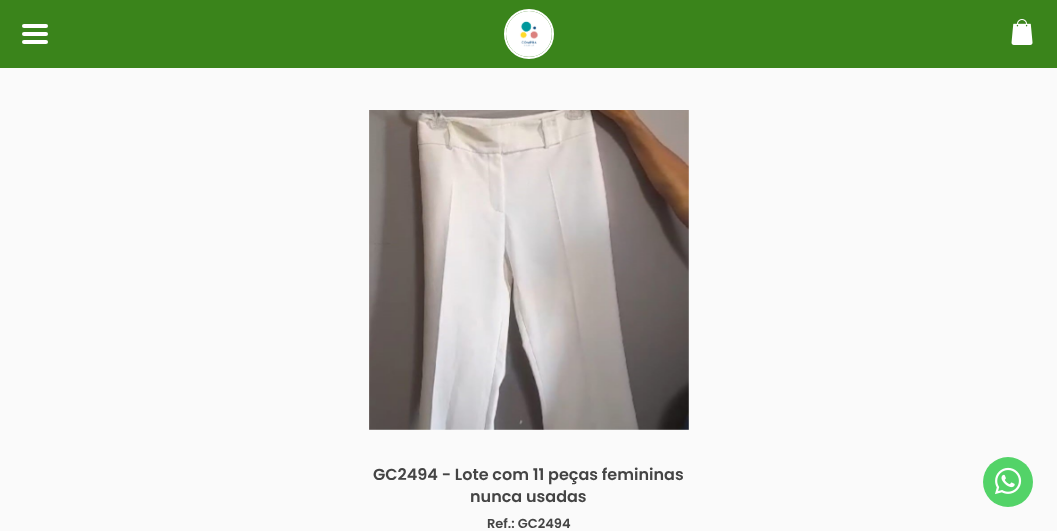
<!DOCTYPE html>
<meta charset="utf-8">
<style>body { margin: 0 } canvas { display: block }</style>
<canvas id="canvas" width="1057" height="531"></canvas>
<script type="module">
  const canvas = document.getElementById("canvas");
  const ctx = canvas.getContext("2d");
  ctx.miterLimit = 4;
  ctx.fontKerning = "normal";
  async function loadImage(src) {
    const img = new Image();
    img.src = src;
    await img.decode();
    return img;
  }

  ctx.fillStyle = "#fafafa";
  ctx.fillRect(0, 0, 1057, 531);
  ctx.fillStyle = "#3a841b";
  ctx.fillRect(0, 0, 1057, 68);
  ctx.fillStyle = "#ffffff";
  ctx.beginPath();
  ctx.roundRect(22, 40, 26, 4, 2);
  ctx.fill();
  ctx.beginPath();
  ctx.roundRect(22, 32, 26, 4, 2);
  ctx.fill();
  ctx.beginPath();
  ctx.roundRect(22, 24, 26, 4, 2);
  ctx.fill();
  ctx.beginPath();
  ctx.arc(529, 34, 24, 0, Math.PI * 2);
  ctx.strokeStyle = "#ffffff";
  ctx.lineWidth = 2;
  ctx.stroke();
  ctx.drawImage(await loadImage("img1.png"), 506, 11, 46, 46);
  ctx.drawImage(await loadImage("img2.png"), 1011, 19, 22, 26);
  ctx.fillRect(369, 110, 320, 320);
  ctx.drawImage(await loadImage("img3.png"), 369, 110, 320, 320);
  ctx.font = "600 16px Poppins";
  ctx.fillStyle = "#444444";
  ctx.fillText("GC2494 - Lote com 11 peças femininas", 373, 480);
  ctx.fillText("nunca usadas", 470, 502);
  ctx.font = "600 13px Poppins";
  ctx.fillText("Ref.: GC2494", 487, 528);
  ctx.fillStyle = "#53d368";
  ctx.beginPath();
  ctx.arc(1008, 482, 25, 0, Math.PI * 2);
  ctx.fill();
  ctx.drawImage(await loadImage("img4.png"), 995, 467, 27, 28);
</script>
